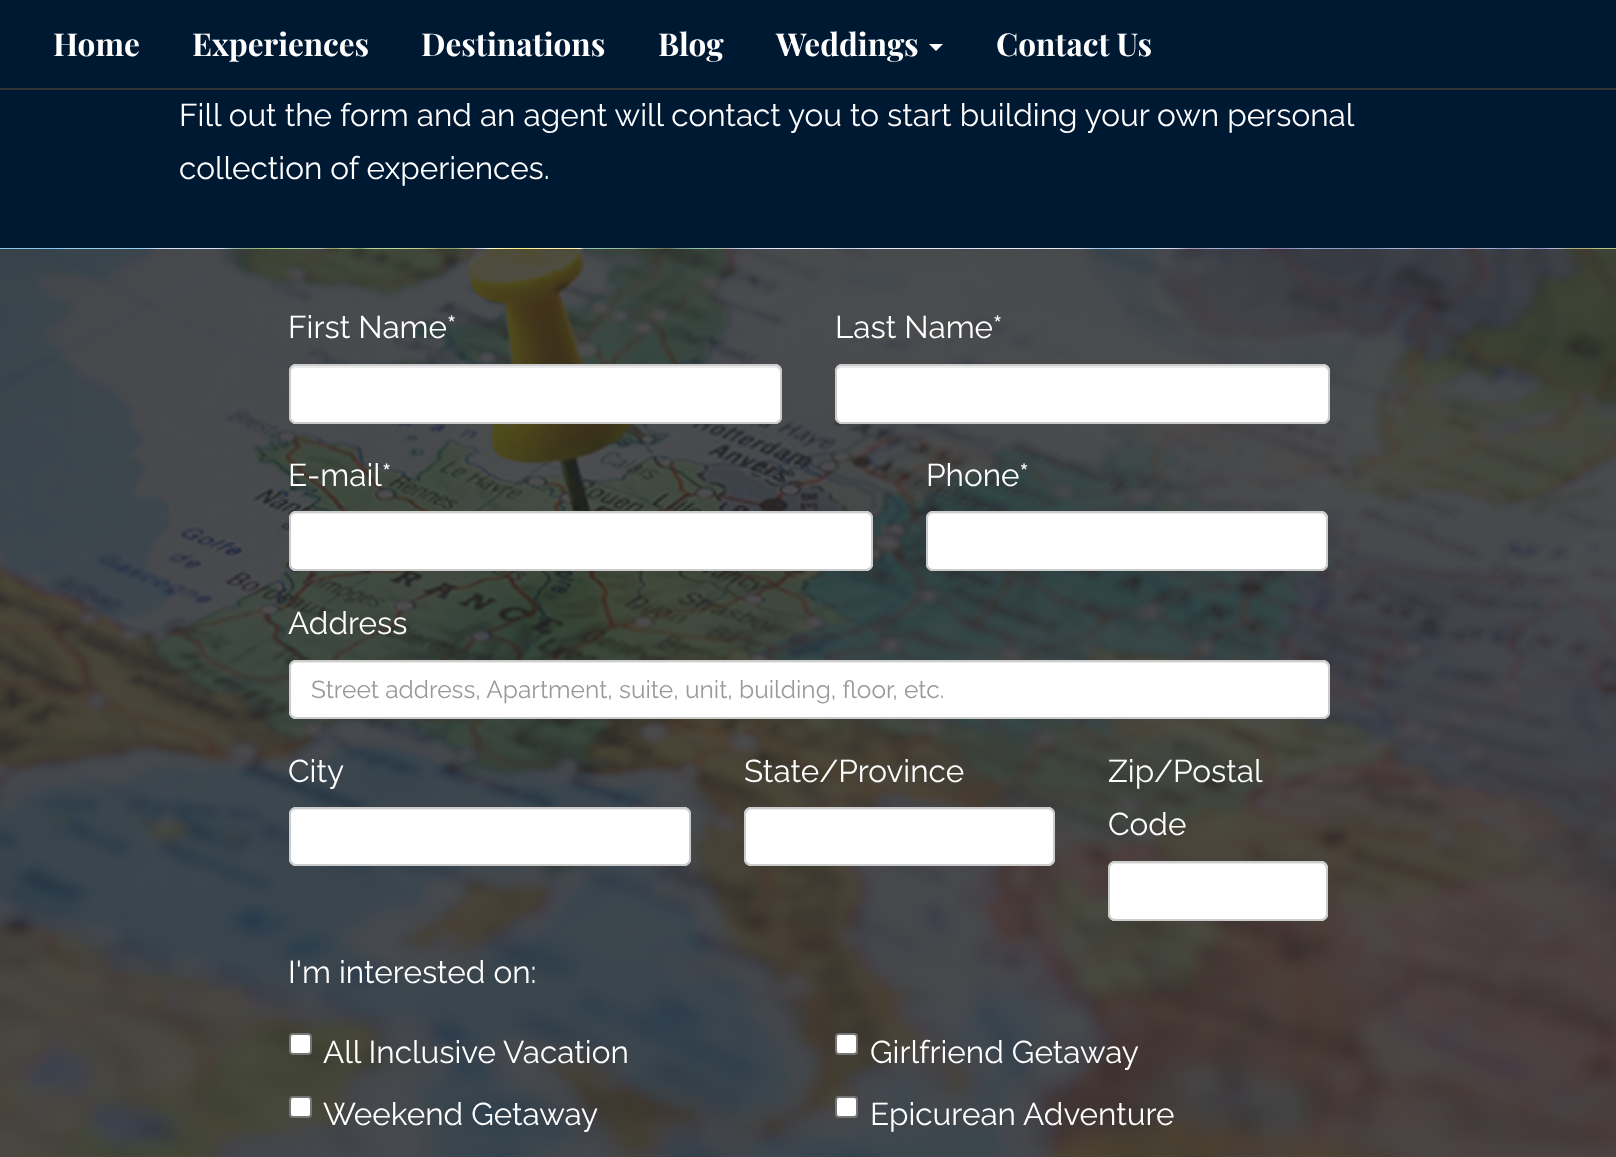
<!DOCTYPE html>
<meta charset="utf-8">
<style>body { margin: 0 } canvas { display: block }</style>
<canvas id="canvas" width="1616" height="1157"></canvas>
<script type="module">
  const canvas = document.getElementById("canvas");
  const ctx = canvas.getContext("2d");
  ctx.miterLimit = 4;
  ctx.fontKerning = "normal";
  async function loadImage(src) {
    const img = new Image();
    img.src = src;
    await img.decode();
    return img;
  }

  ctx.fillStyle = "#001933";
  ctx.fillRect(0, 0, 1616, 1157);
  ctx.fillStyle = "#333333";
  ctx.fillRect(0, 88, 1616, 2);
  ctx.font = "bold 31.5px Playfair Display";
  ctx.fillStyle = "#ffffff";
  ctx.fillText("Home", 53, 56);
  ctx.fillText("Experiences", 192, 56);
  ctx.fillText("Destinations", 421, 56);
  ctx.fillText("Blog", 658, 56);
  ctx.fillText("Weddings", 776, 56);
  ctx.beginPath();
  ctx.moveTo(929, 44);
  ctx.lineTo(943, 44);
  ctx.lineTo(936, 51);
  ctx.closePath();
  ctx.fill();
  ctx.fillText("Contact Us", 996, 56);
  ctx.font = "31.5px Raleway";
  ctx.fillText("Fill out the form and an agent will contact you to start building your own personal", 179, 126);
  ctx.fillText("collection of experiences.", 179, 179);
  ctx.drawImage(await loadImage("img1.png"), 0, 248, 1616, 909);
  ctx.fillText("First Name*", 288, 338);
  ctx.beginPath();
  ctx.roundRect(289, 364, 493, 60, 7);
  ctx.fill();
  ctx.fillStyle = "#ececec";
  ctx.beginPath();
  ctx.moveTo(296, 368);
  ctx.lineTo(775, 368);
  ctx.bezierCurveTo(778, 368, 780, 370, 780, 373);
  ctx.lineTo(780, 418);
  ctx.lineTo(780, 421);
  ctx.bezierCurveTo(780, 420, 781, 418, 781, 417);
  ctx.lineTo(781, 371);
  ctx.bezierCurveTo(781, 368, 779, 366, 776, 366);
  ctx.lineTo(296, 366);
  ctx.bezierCurveTo(294, 366, 291, 368, 291, 370);
  ctx.bezierCurveTo(292, 369, 294, 368, 296, 368);
  ctx.closePath();
  ctx.fill();
  ctx.beginPath();
  ctx.roundRect(290, 365, 491, 58, 6);
  ctx.strokeStyle = "#cccccc";
  ctx.lineWidth = 2;
  ctx.stroke();
  ctx.fillStyle = "#ffffff";
  ctx.fillText("Last Name*", 835, 338);
  ctx.beginPath();
  ctx.roundRect(835, 364, 495, 60, 7);
  ctx.fill();
  ctx.fillStyle = "#ececec";
  ctx.beginPath();
  ctx.moveTo(842, 368);
  ctx.lineTo(1323, 368);
  ctx.bezierCurveTo(1326, 368, 1328, 370, 1328, 373);
  ctx.lineTo(1328, 371);
  ctx.bezierCurveTo(1328, 368, 1326, 366, 1323, 366);
  ctx.lineTo(842, 366);
  ctx.bezierCurveTo(840, 366, 837, 368, 837, 370);
  ctx.bezierCurveTo(838, 369, 840, 368, 842, 368);
  ctx.closePath();
  ctx.fill();
  ctx.beginPath();
  ctx.roundRect(836, 365, 493, 58, 6);
  ctx.stroke();
  ctx.fillStyle = "#ffffff";
  ctx.fillText("E-mail*", 288, 486);
  ctx.beginPath();
  ctx.roundRect(289, 511, 584, 60, 7);
  ctx.fill();
  ctx.fillStyle = "#ececec";
  ctx.beginPath();
  ctx.moveTo(296, 514);
  ctx.lineTo(866, 514);
  ctx.bezierCurveTo(869, 514, 872, 517, 872, 520);
  ctx.lineTo(872, 518);
  ctx.bezierCurveTo(872, 515, 870, 513, 867, 513);
  ctx.lineTo(296, 513);
  ctx.bezierCurveTo(294, 513, 292, 515, 291, 517);
  ctx.bezierCurveTo(292, 515, 294, 514, 296, 514);
  ctx.closePath();
  ctx.fill();
  ctx.beginPath();
  ctx.roundRect(290, 512, 582, 58, 6);
  ctx.stroke();
  ctx.fillStyle = "#ffffff";
  ctx.fillText("Phone*", 926, 486);
  ctx.beginPath();
  ctx.roundRect(926, 511, 402, 60, 7);
  ctx.fill();
  ctx.fillStyle = "#ececec";
  ctx.beginPath();
  ctx.moveTo(933, 514);
  ctx.lineTo(1321, 514);
  ctx.bezierCurveTo(1324, 514, 1326, 517, 1326, 520);
  ctx.lineTo(1326, 565);
  ctx.lineTo(1325, 568);
  ctx.bezierCurveTo(1326, 567, 1327, 565, 1327, 564);
  ctx.lineTo(1327, 518);
  ctx.bezierCurveTo(1327, 515, 1325, 513, 1322, 513);
  ctx.lineTo(933, 513);
  ctx.bezierCurveTo(930, 513, 928, 515, 928, 518);
  ctx.lineTo(928, 520);
  ctx.bezierCurveTo(928, 517, 930, 514, 933, 514);
  ctx.closePath();
  ctx.fill();
  ctx.beginPath();
  ctx.roundRect(927, 512, 400, 58, 6);
  ctx.stroke();
  ctx.fillStyle = "#ffffff";
  ctx.fillText("Address", 288, 634);
  ctx.beginPath();
  ctx.roundRect(289, 660, 1041, 59, 7);
  ctx.fill();
  ctx.fillStyle = "#ececec";
  ctx.beginPath();
  ctx.moveTo(296, 663);
  ctx.lineTo(1323, 663);
  ctx.bezierCurveTo(1326, 663, 1328, 666, 1328, 668);
  ctx.lineTo(1328, 667);
  ctx.bezierCurveTo(1328, 664, 1326, 662, 1323, 662);
  ctx.lineTo(296, 662);
  ctx.bezierCurveTo(294, 662, 292, 663, 291, 665);
  ctx.bezierCurveTo(292, 664, 294, 663, 296, 663);
  ctx.closePath();
  ctx.fill();
  ctx.beginPath();
  ctx.roundRect(290, 661, 1039, 57, 6);
  ctx.stroke();
  ctx.font = "24.5px Raleway";
  ctx.fillStyle = "#999999";
  ctx.fillText("Street address, Apartment, suite, unit, building, floor, etc.", 311, 698);
  ctx.font = "31.5px Raleway";
  ctx.fillStyle = "#ffffff";
  ctx.fillText("City", 288, 782);
  ctx.beginPath();
  ctx.roundRect(289, 807, 402, 59, 7);
  ctx.fill();
  ctx.fillStyle = "#ececec";
  ctx.beginPath();
  ctx.moveTo(296, 810);
  ctx.lineTo(684, 810);
  ctx.bezierCurveTo(687, 810, 690, 813, 690, 816);
  ctx.lineTo(690, 814);
  ctx.bezierCurveTo(690, 811, 688, 809, 685, 809);
  ctx.lineTo(296, 809);
  ctx.bezierCurveTo(294, 809, 292, 811, 291, 813);
  ctx.bezierCurveTo(292, 811, 294, 810, 296, 810);
  ctx.closePath();
  ctx.fill();
  ctx.beginPath();
  ctx.roundRect(290, 808, 400, 57, 6);
  ctx.stroke();
  ctx.fillStyle = "#ffffff";
  ctx.fillText("State/Province", 744, 782);
  ctx.beginPath();
  ctx.roundRect(744, 807, 311, 59, 7);
  ctx.fill();
  ctx.fillStyle = "#ececec";
  ctx.beginPath();
  ctx.moveTo(751, 810);
  ctx.lineTo(1048, 810);
  ctx.bezierCurveTo(1051, 810, 1054, 813, 1054, 816);
  ctx.lineTo(1054, 814);
  ctx.bezierCurveTo(1054, 811, 1052, 809, 1049, 809);
  ctx.lineTo(751, 809);
  ctx.bezierCurveTo(748, 809, 746, 811, 746, 814);
  ctx.lineTo(746, 816);
  ctx.bezierCurveTo(746, 813, 748, 810, 751, 810);
  ctx.closePath();
  ctx.fill();
  ctx.beginPath();
  ctx.roundRect(745, 808, 309, 57, 6);
  ctx.stroke();
  ctx.fillStyle = "#ffffff";
  ctx.fillText("Zip/Postal", 1108, 782);
  ctx.fillText("Code", 1108, 835);
  ctx.beginPath();
  ctx.roundRect(1108, 861, 220, 60, 7);
  ctx.fill();
  ctx.fillStyle = "#ececec";
  ctx.beginPath();
  ctx.moveTo(1115, 864);
  ctx.lineTo(1321, 864);
  ctx.bezierCurveTo(1324, 864, 1326, 867, 1326, 870);
  ctx.lineTo(1326, 915);
  ctx.lineTo(1325, 918);
  ctx.bezierCurveTo(1326, 917, 1327, 915, 1327, 914);
  ctx.lineTo(1327, 868);
  ctx.bezierCurveTo(1327, 865, 1325, 863, 1322, 863);
  ctx.lineTo(1115, 863);
  ctx.bezierCurveTo(1112, 863, 1110, 865, 1110, 868);
  ctx.lineTo(1110, 870);
  ctx.bezierCurveTo(1110, 867, 1112, 864, 1115, 864);
  ctx.closePath();
  ctx.fill();
  ctx.beginPath();
  ctx.roundRect(1109, 862, 218, 58, 6);
  ctx.stroke();
  ctx.fillStyle = "#ffffff";
  ctx.fillText("I'm interested on:", 288, 983);
  ctx.beginPath();
  ctx.roundRect(290, 1034, 21, 20, 3);
  ctx.fill();
  ctx.strokeStyle = "#767676";
  ctx.stroke();
  ctx.fillText("All Inclusive Vacation", 323, 1063);
  ctx.beginPath();
  ctx.roundRect(290, 1097, 21, 20, 3);
  ctx.fill();
  ctx.stroke();
  ctx.fillText("Weekend Getaway", 323, 1125);
  ctx.beginPath();
  ctx.roundRect(836, 1034, 21, 20, 3);
  ctx.fill();
  ctx.stroke();
  ctx.fillText("Girlfriend Getaway", 870, 1063);
  ctx.beginPath();
  ctx.roundRect(836, 1097, 21, 20, 3);
  ctx.fill();
  ctx.stroke();
  ctx.fillText("Epicurean Adventure", 870, 1125);
</script>
